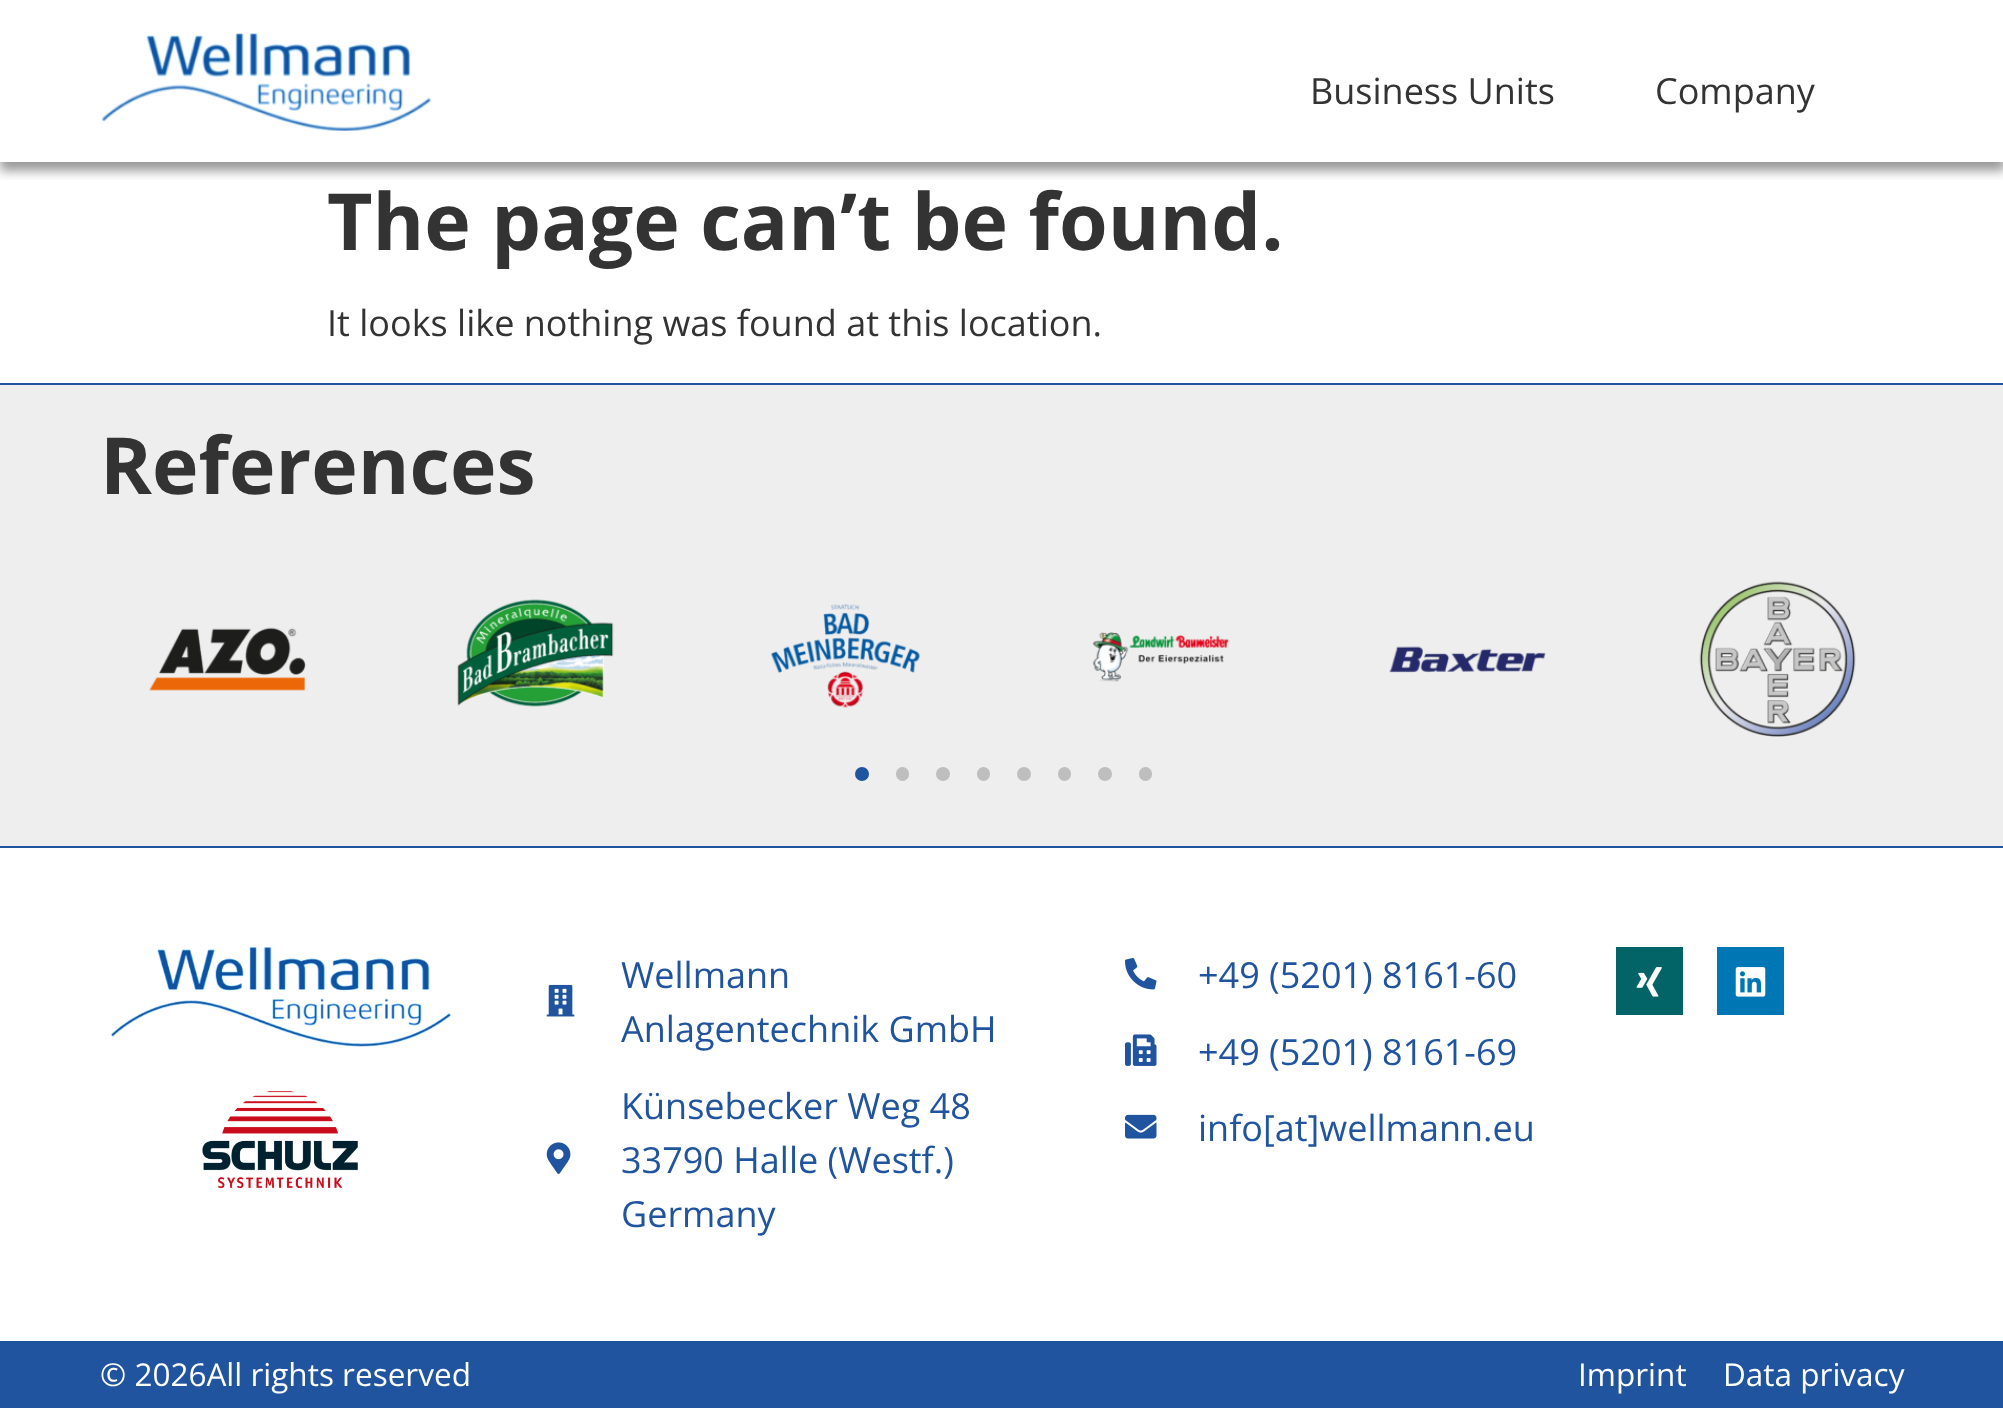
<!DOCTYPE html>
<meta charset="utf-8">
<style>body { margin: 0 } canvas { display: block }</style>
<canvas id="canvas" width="2003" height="1408"></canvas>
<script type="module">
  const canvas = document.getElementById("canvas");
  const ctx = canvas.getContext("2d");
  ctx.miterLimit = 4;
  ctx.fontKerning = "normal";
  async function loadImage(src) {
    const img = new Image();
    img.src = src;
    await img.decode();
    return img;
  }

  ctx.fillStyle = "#ffffff";
  ctx.fillRect(0, 0, 2003, 1408);
  ctx.save();
  ctx.beginPath();
  ctx.rect(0, 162, 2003, 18);
  ctx.clip();
  ctx.fillStyle = "rgba(0, 0, 0, 0.4)";
  ctx.filter = "blur(5.5px)";
  ctx.beginPath();
  ctx.rect(0, 9, 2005, 162);
  ctx.fill();
  ctx.filter = "none";
  ctx.restore();
  ctx.drawImage(await loadImage("img1.png"), 101, 33, 331, 98);
  ctx.font = "36px 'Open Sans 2'";
  ctx.fillStyle = "#333333";
  ctx.fillText("Business Units", 1310, 104);
  ctx.fillText("Company", 1655, 104);
  ctx.font = "bold 78.75px Open Sans";
  ctx.fillText("The page can’t be found.", 327, 250);
  ctx.font = "36px Open Sans";
  ctx.fillText("It looks like nothing was found at this location.", 327, 336);
  ctx.fillStyle = "#eeeeee";
  ctx.fillRect(0, 385, 2003, 461);
  ctx.fillStyle = "#21549e";
  ctx.fillRect(0, 383, 2003, 2);
  ctx.font = "bold 78.75px Open Sans";
  ctx.fillStyle = "#333333";
  ctx.fillText("References", 100, 494);
  ctx.drawImage(await loadImage("img2.png"), 149, 627, 157, 64);
  ctx.drawImage(await loadImage("img3.png"), 457, 599, 157, 108);
  ctx.drawImage(await loadImage("img4.png"), 771, 604, 149, 104);
  ctx.drawImage(await loadImage("img5.png"), 1092, 632, 137, 50);
  ctx.drawImage(await loadImage("img6.png"), 1389, 646, 157, 27);
  ctx.drawImage(await loadImage("img7.png"), 1699, 581, 157, 156);
  ctx.fillStyle = "#21549e";
  ctx.beginPath();
  ctx.arc(862, 774, 7, 0, Math.PI * 2);
  ctx.fill();
  ctx.fillStyle = "#bebebe";
  ctx.beginPath();
  ctx.roundRect(896, 767, 13, 14, 6.5);
  ctx.fill();
  ctx.beginPath();
  ctx.arc(943, 774, 7, 0, Math.PI * 2);
  ctx.fill();
  ctx.beginPath();
  ctx.roundRect(977, 767, 13, 14, 6.5);
  ctx.fill();
  ctx.beginPath();
  ctx.arc(1024, 774, 7, 0, Math.PI * 2);
  ctx.fill();
  ctx.beginPath();
  ctx.roundRect(1058, 767, 13, 14, 6.5);
  ctx.fill();
  ctx.beginPath();
  ctx.arc(1105, 774, 7, 0, Math.PI * 2);
  ctx.fill();
  ctx.beginPath();
  ctx.roundRect(1139, 767, 13, 14, 6.5);
  ctx.fill();
  ctx.fillStyle = "#21549e";
  ctx.fillRect(0, 846, 2003, 2);
  ctx.drawImage(await loadImage("img8.png"), 111, 947, 340, 100);
  ctx.drawImage(await loadImage("img9.png"), 202, 1091, 156, 97);
  ctx.drawImage(await loadImage("img10.png"), 546, 984, 29, 33);
  ctx.font = "36px Open Sans";
  ctx.fillText("Wellmann", 621, 988);
  ctx.fillText("Anlagentechnik GmbH", 621, 1042);
  ctx.drawImage(await loadImage("img11.png"), 546, 1142, 25, 32);
  ctx.fillText("Künsebecker Weg 48", 621, 1119);
  ctx.fillText("33790 Halle (Westf.)", 621, 1173);
  ctx.fillText("Germany", 621, 1227);
  ctx.drawImage(await loadImage("img12.png"), 1125, 958, 32, 32);
  ctx.font = "36px 'Open Sans 2'";
  ctx.fillText("+49 (5201) 8161-60", 1198, 988);
  ctx.drawImage(await loadImage("img13.png"), 1125, 1034, 32, 32);
  ctx.fillText("+49 (5201) 8161-69", 1198, 1065);
  ctx.drawImage(await loadImage("img14.png"), 1125, 1114, 32, 25);
  ctx.fillText("info[at]wellmann.eu", 1198, 1141);
  ctx.fillStyle = "#026466";
  ctx.fillRect(1616, 947, 67, 68);
  ctx.drawImage(await loadImage("img15.png"), 1636, 967, 26, 30);
  ctx.fillStyle = "#0077b5";
  ctx.fillRect(1717, 947, 67, 68);
  ctx.drawImage(await loadImage("img16.png"), 1735, 967, 31, 30);
  ctx.fillStyle = "#21549e";
  ctx.fillRect(0, 1341, 2003, 67);
  ctx.font = "31.5px 'Open Sans 2'";
  ctx.fillStyle = "#ffffff";
  ctx.fillText("© 2026All rights reserved", 100, 1386);
  ctx.fillText("Imprint", 1578, 1386);
  ctx.fillText("Data privacy", 1723, 1386);
</script>
